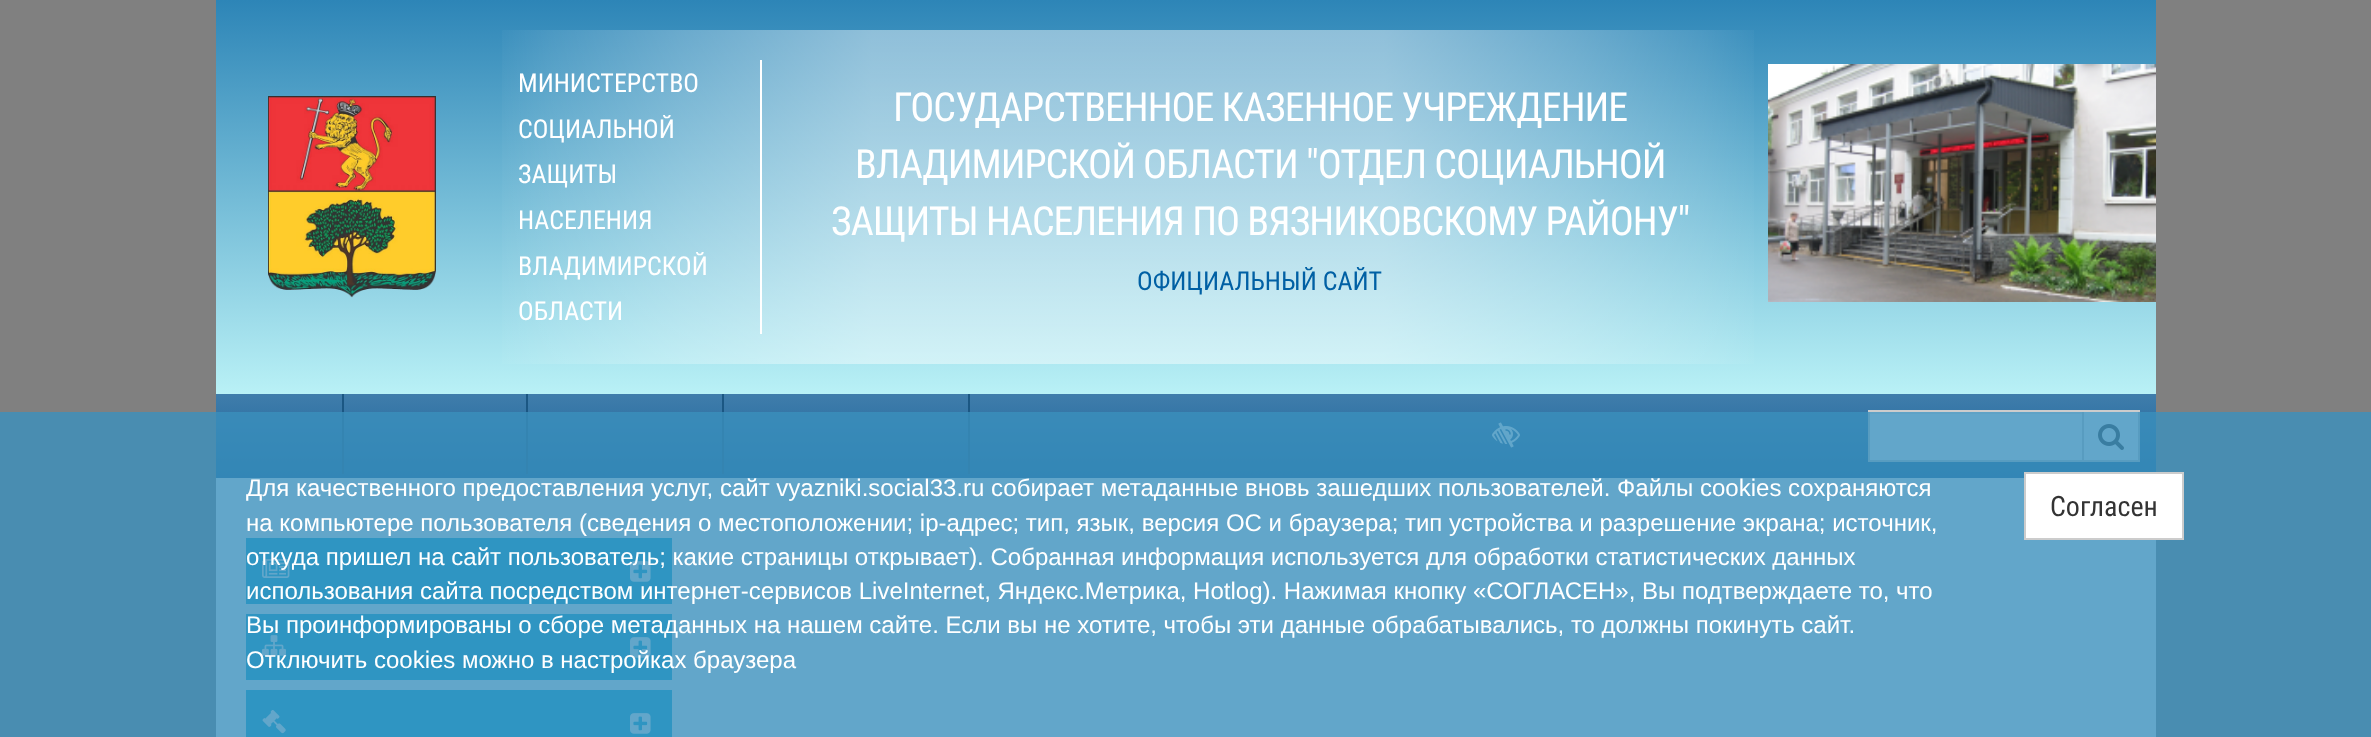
<!DOCTYPE html>
<meta charset="utf-8">
<style>body { margin: 0 } canvas { display: block }</style>
<canvas id="canvas" width="2371" height="737"></canvas>
<script type="module">
  const canvas = document.getElementById("canvas");
  const ctx = canvas.getContext("2d");
  ctx.miterLimit = 4;
  ctx.fontKerning = "normal";
  async function loadImage(src) {
    const img = new Image();
    img.src = src;
    await img.decode();
    return img;
  }
  let gradient;

  ctx.fillStyle = "#808080";
  ctx.fillRect(0, 0, 2371, 737);
  ctx.fillStyle = "#ffffff";
  ctx.fillRect(216, 478, 1808, 60);
  gradient = ctx.createLinearGradient(1186, 0, 1186, 394);
  gradient.addColorStop(0, "#2d85b7");
  gradient.addColorStop(1, "#b9f1f6");
  ctx.fillStyle = gradient;
  ctx.fillRect(216, 0, 1940, 394);
  ctx.drawImage(await loadImage("img1.png"), 268, 96, 168, 202);
  gradient = ctx.createLinearGradient(488, 197, 1768, 197);
  gradient.addColorStop(0, "rgba(255, 255, 255, 0)");
  gradient.addColorStop(0.05, "rgba(255, 255, 255, 0.1)");
  gradient.addColorStop(0.15, "rgba(255, 255, 255, 0.25)");
  gradient.addColorStop(0.3, "rgba(255, 255, 255, 0.44)");
  gradient.addColorStop(0.7, "rgba(255, 255, 255, 0.44)");
  gradient.addColorStop(0.85, "rgba(255, 255, 255, 0.25)");
  gradient.addColorStop(0.95, "rgba(255, 255, 255, 0.1)");
  gradient.addColorStop(1, "rgba(255, 255, 255, 0)");
  ctx.fillStyle = gradient;
  ctx.fillRect(502, 30, 1252, 334);
  ctx.fillStyle = "#ffffff";
  ctx.fillRect(760, 60, 2, 274);
  ctx.font = "26px Roboto Condensed";
  ctx.fillText("МИНИСТЕРСТВО", 518, 92);
  ctx.fillText("СОЦИАЛЬНОЙ", 518, 138);
  ctx.fillText("ЗАЩИТЫ", 518, 183);
  ctx.fillText("НАСЕЛЕНИЯ", 518, 229);
  ctx.fillText("ВЛАДИМИРСКОЙ", 518, 275);
  ctx.fillText("ОБЛАСТИ", 518, 320);
  ctx.letterSpacing = "-1px";
  ctx.font = "40px Roboto Condensed";
  ctx.fillText("ГОСУДАРСТВЕННОЕ КАЗЕННОЕ УЧРЕЖДЕНИЕ", 893, 121);
  ctx.fillText("ВЛАДИМИРСКОЙ ОБЛАСТИ \"ОТДЕЛ СОЦИАЛЬНОЙ", 855, 178);
  ctx.fillText("ЗАЩИТЫ НАСЕЛЕНИЯ ПО ВЯЗНИКОВСКОМУ РАЙОНУ\"", 831, 235);
  ctx.letterSpacing = "0px";
  ctx.font = "26px Roboto Condensed";
  ctx.fillStyle = "#0060a4";
  ctx.fillText("ОФИЦИАЛЬНЫЙ САЙТ", 1137, 290);
  ctx.drawImage(await loadImage("img2.png"), 1768, 64, 388, 238);
  gradient = ctx.createLinearGradient(1186, 394, 1186, 478);
  gradient.addColorStop(0, "#407dab");
  gradient.addColorStop(1, "#156199");
  ctx.fillStyle = gradient;
  ctx.fillRect(216, 394, 1940, 84);
  ctx.fillStyle = "#1b5783";
  ctx.fillRect(342, 394, 2, 80);
  ctx.fillRect(526, 394, 2, 80);
  ctx.fillRect(722, 394, 2, 80);
  ctx.fillRect(968, 394, 2, 80);
  ctx.drawImage(await loadImage("img3.png"), 1492, 422, 28, 26);
  ctx.fillStyle = "#ffffff";
  ctx.fillRect(1870, 414, 212, 46);
  ctx.fillStyle = "#ececec";
  ctx.fillRect(1870, 412, 212, 2);
  ctx.strokeStyle = "#cccccc";
  ctx.lineWidth = 2;
  ctx.strokeRect(1869, 411, 214, 50);
  ctx.fillStyle = "#ffffff";
  ctx.beginPath();
  ctx.rect(2083, 411, 56, 50);
  ctx.fill();
  ctx.stroke();
  ctx.drawImage(await loadImage("img4.png"), 2098, 424, 26, 26);
  ctx.fillRect(216, 538, 1940, 199);
  ctx.fillStyle = "#00aad4";
  ctx.fillRect(246, 538, 426, 66);
  ctx.drawImage(await loadImage("img5.png"), 262, 559, 28, 19);
  ctx.drawImage(await loadImage("img6.png"), 630, 561, 21, 21);
  ctx.fillRect(246, 614, 426, 66);
  ctx.drawImage(await loadImage("img7.png"), 262, 635, 24, 21);
  ctx.drawImage(await loadImage("img6.png"), 630, 637, 21, 21);
  ctx.fillRect(246, 690, 426, 47);
  ctx.drawImage(await loadImage("img8.png"), 262, 710, 24, 24);
  ctx.drawImage(await loadImage("img6.png"), 630, 713, 21, 21);
  ctx.fillStyle = "rgba(59, 144, 189, 0.8)";
  ctx.fillRect(0, 412, 2371, 325);
  ctx.font = "24px Liberation Sans";
  ctx.fillStyle = "#ffffff";
  ctx.fillText("Для качественного предоставления услуг, сайт vyazniki.social33.ru собирает метаданные вновь зашедших пользователей. Файлы cookies сохраняются", 246, 496);
  ctx.fillText("на компьютере пользователя (сведения о местоположении; ip-адрес; тип, язык, версия ОС и браузера; тип устройства и разрешение экрана; источник,", 246, 531);
  ctx.fillText("откуда пришел на сайт пользователь; какие страницы открывает). Собранная информация используется для обработки статистических данных", 246, 565);
  ctx.fillText("использования сайта посредством интернет-сервисов LiveInternet, Яндекс.Метрика, Hotlog). Нажимая кнопку «СОГЛАСЕН», Вы подтверждаете то, что", 246, 599);
  ctx.fillText("Вы проинформированы о сборе метаданных на нашем сайте. Если вы не хотите, чтобы эти данные обрабатывались, то должны покинуть сайт.", 246, 633);
  ctx.fillText("Отключить cookies можно в настройках браузера", 246, 668);
  ctx.beginPath();
  ctx.rect(2025, 473, 158, 66);
  ctx.fill();
  ctx.stroke();
  ctx.font = "28px Roboto Condensed";
  ctx.fillStyle = "#333333";
  ctx.fillText("Согласен", 2050, 516);
</script>
